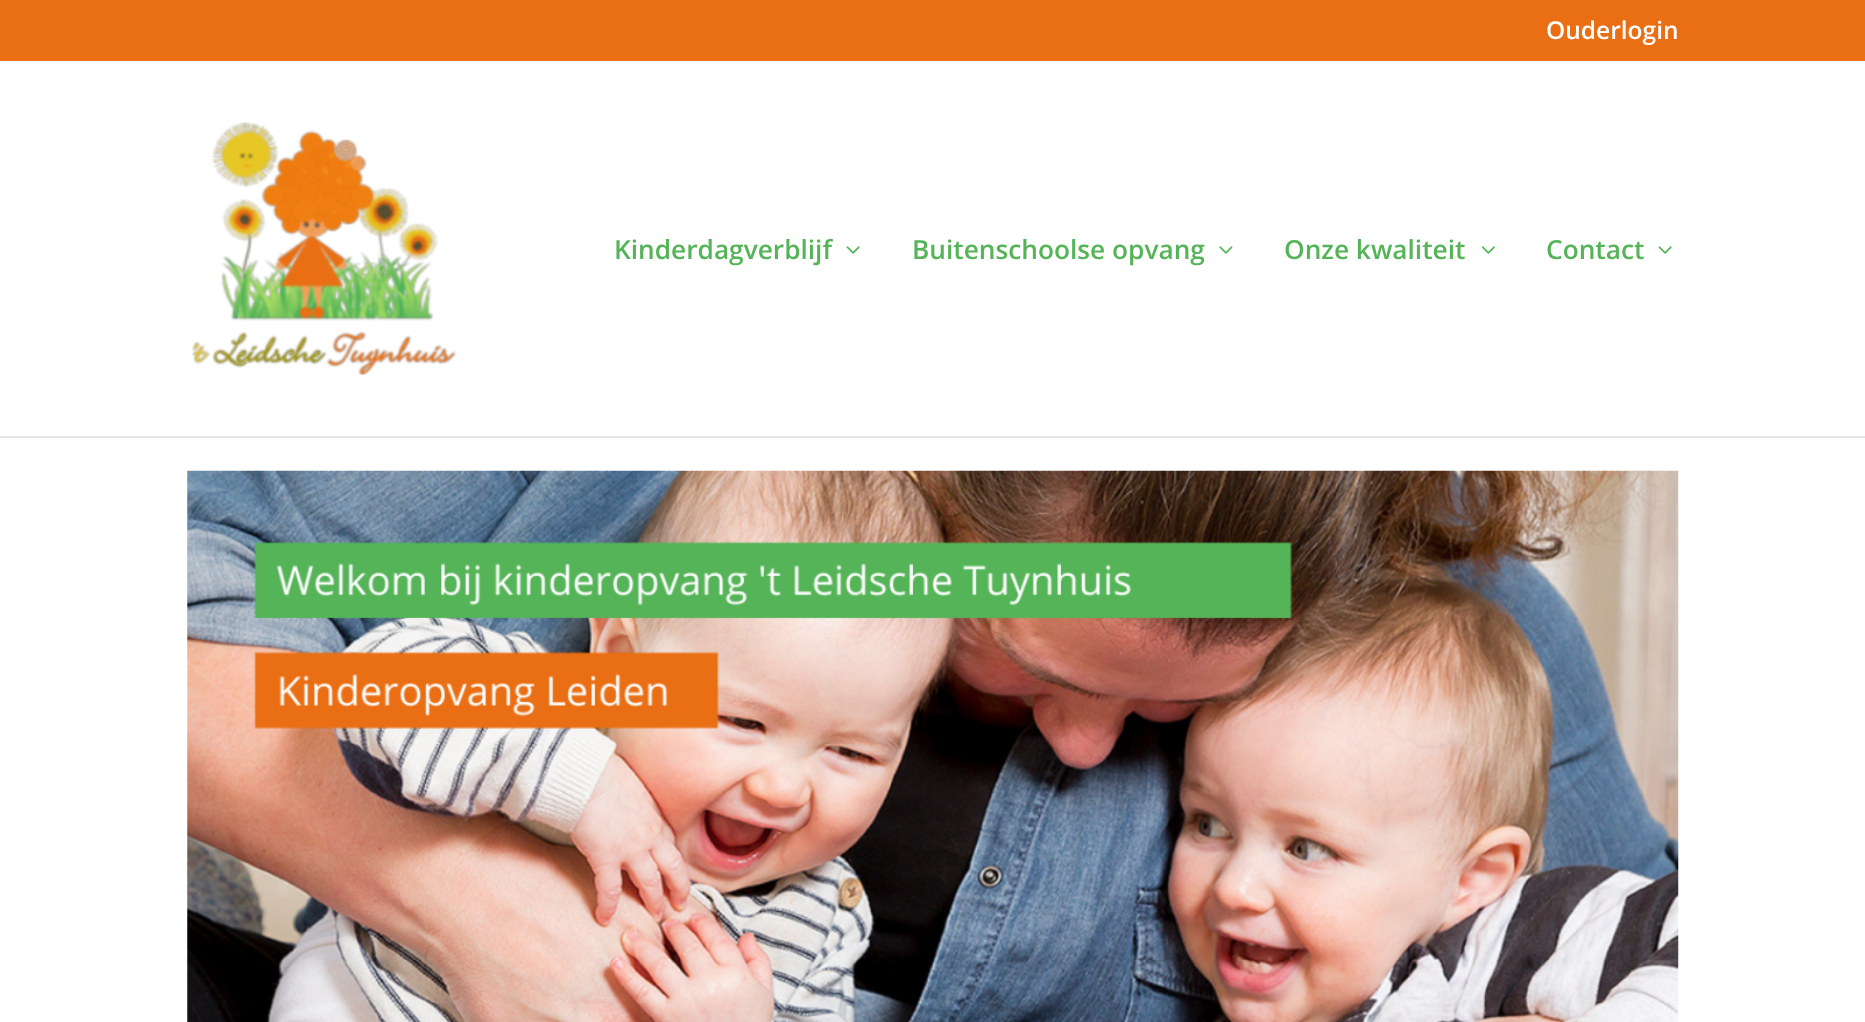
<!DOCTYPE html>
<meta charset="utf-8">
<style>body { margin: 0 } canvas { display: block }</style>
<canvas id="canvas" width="1865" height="1022"></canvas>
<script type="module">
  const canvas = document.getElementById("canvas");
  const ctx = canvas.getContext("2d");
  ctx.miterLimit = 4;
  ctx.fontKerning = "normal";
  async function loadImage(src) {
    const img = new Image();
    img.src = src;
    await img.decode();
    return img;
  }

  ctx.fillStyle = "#ffffff";
  ctx.fillRect(0, 0, 1865, 1022);
  ctx.fillStyle = "#ea6f14";
  ctx.fillRect(0, 0, 1865, 61);
  ctx.font = "600 24.5px Open Sans";
  ctx.fillStyle = "#ffffff";
  ctx.fillText("Ouderlogin", 1546, 39);
  ctx.fillStyle = "#e6e6e6";
  ctx.beginPath();
  ctx.moveTo(0, 436);
  ctx.lineTo(0, 438);
  ctx.lineTo(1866, 438);
  ctx.lineTo(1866, 63);
  ctx.lineTo(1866, 436);
  ctx.closePath();
  ctx.fill();
  ctx.drawImage(await loadImage("img1.png"), 192, 122, 264, 253);
  ctx.font = "600 26.25px Open Sans";
  ctx.fillStyle = "#54b457";
  ctx.fillText("Kinderdagverblijf", 614, 259);
  ctx.drawImage(await loadImage("img2.png"), 846, 246, 14, 8);
  ctx.fillText("Buitenschoolse opvang", 912, 259);
  ctx.drawImage(await loadImage("img3.png"), 1219, 246, 14, 8);
  ctx.fillText("Onze kwaliteit", 1284, 259);
  ctx.drawImage(await loadImage("img4.png"), 1481, 246, 14, 8);
  ctx.fillText("Contact", 1546, 259);
  ctx.drawImage(await loadImage("img2.png"), 1658, 246, 14, 8);
  ctx.drawImage(await loadImage("img5.png"), 187, 470, 1492, 552);
</script>
